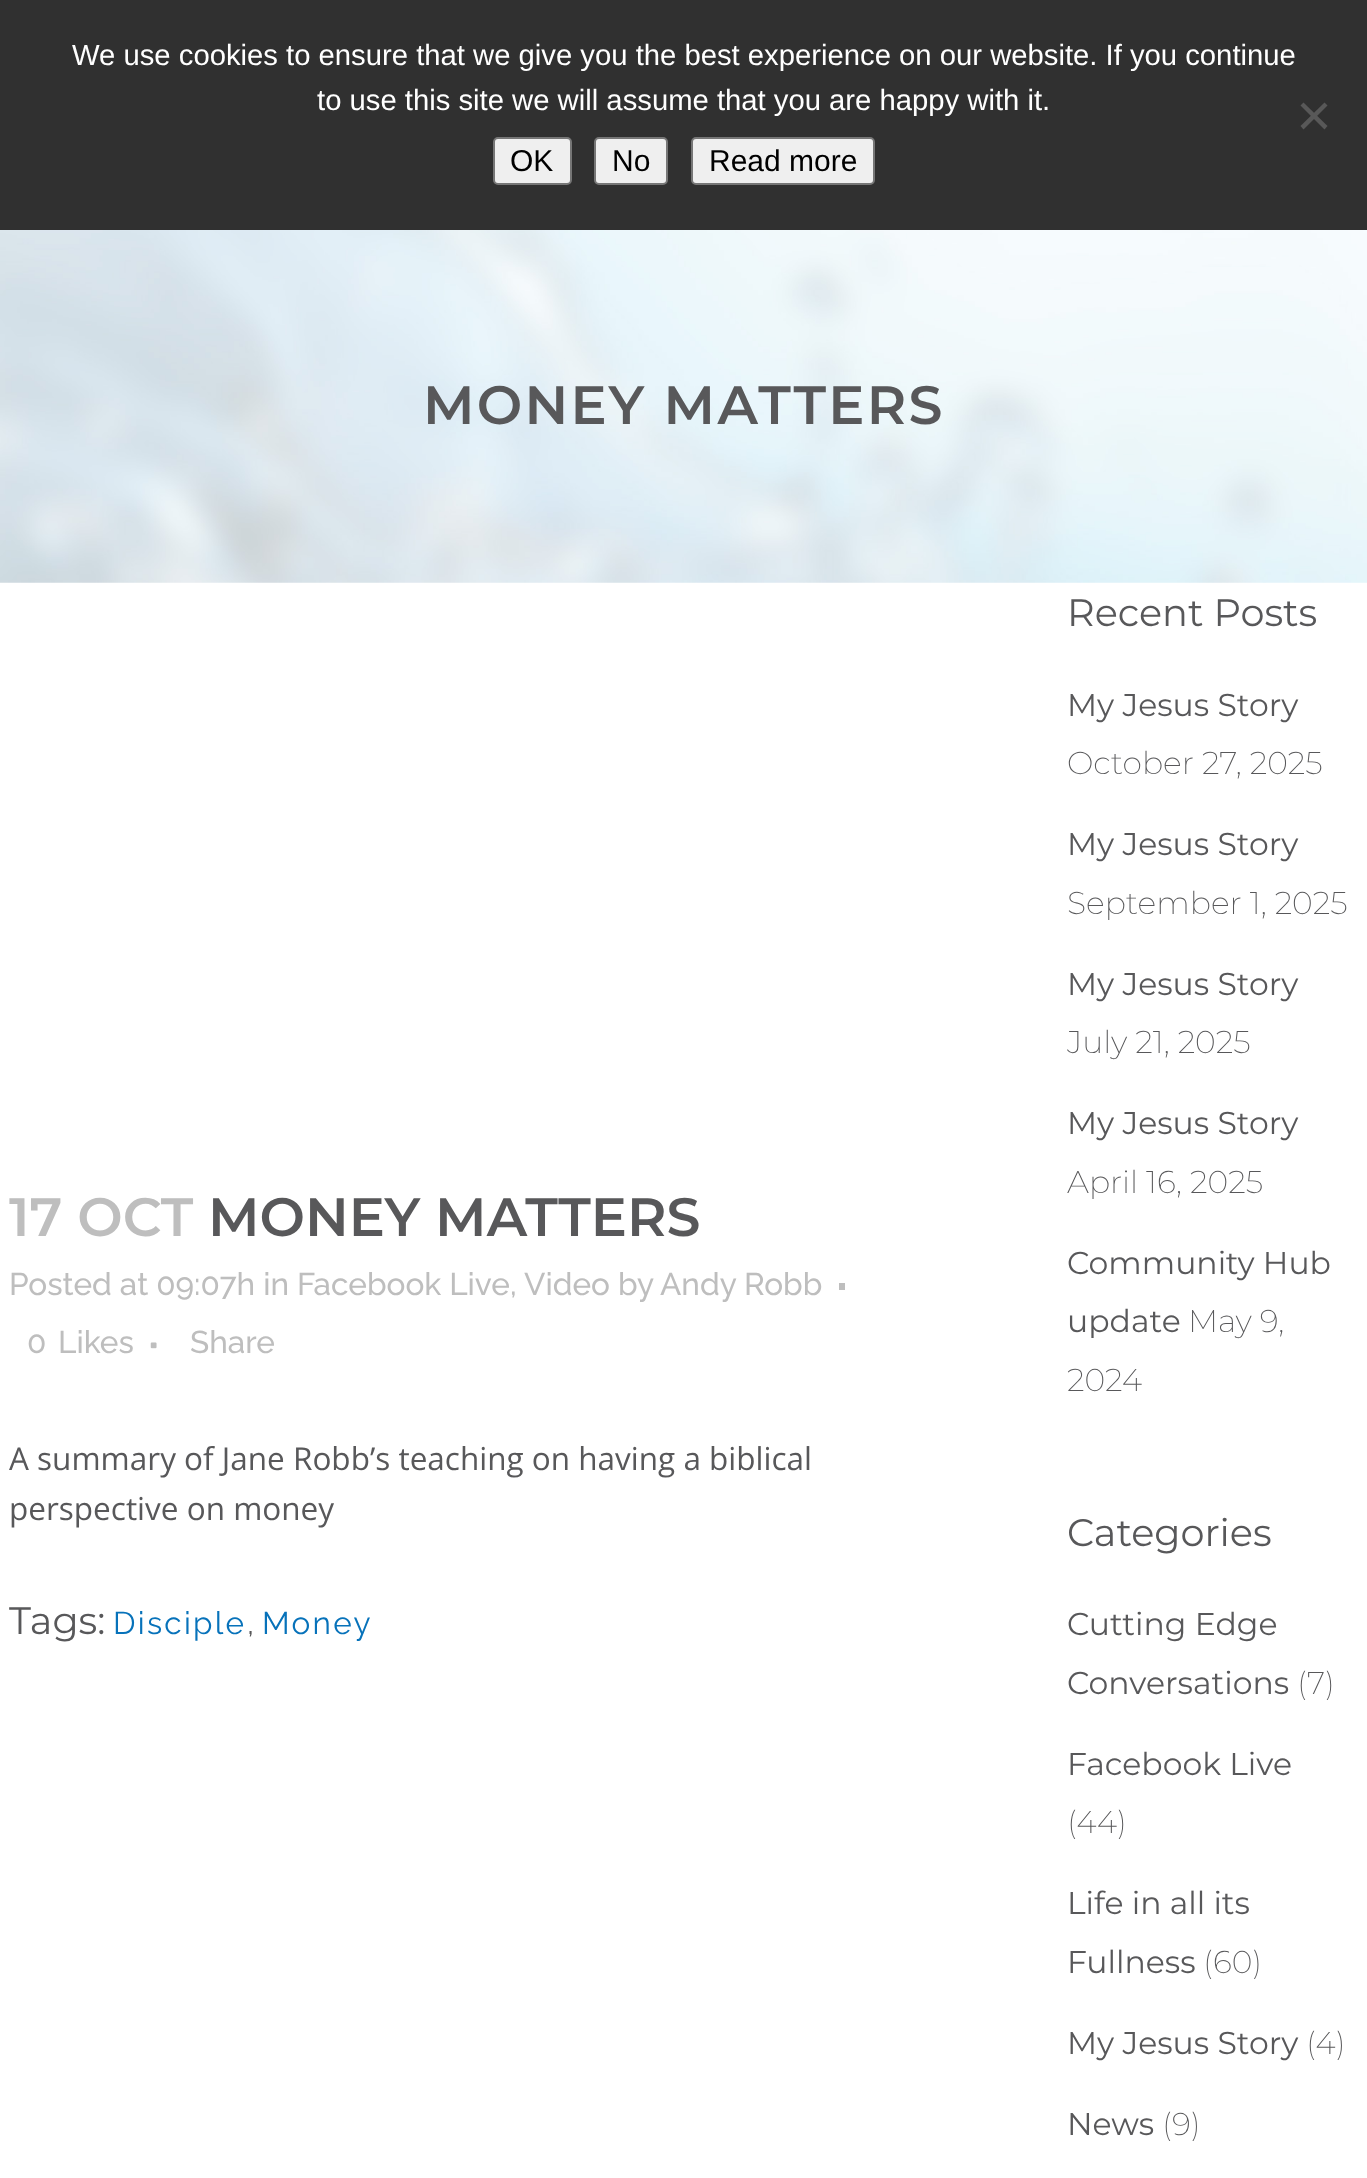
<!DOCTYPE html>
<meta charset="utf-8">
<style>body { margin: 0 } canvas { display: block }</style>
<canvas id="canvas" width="1367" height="2178"></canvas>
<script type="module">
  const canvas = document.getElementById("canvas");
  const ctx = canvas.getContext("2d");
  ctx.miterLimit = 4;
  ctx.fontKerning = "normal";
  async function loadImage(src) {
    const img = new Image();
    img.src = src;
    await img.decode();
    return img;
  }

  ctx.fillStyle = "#ffffff";
  ctx.fillRect(0, 0, 1367, 2178);
  ctx.fillStyle = "#303030";
  ctx.fillRect(0, 0, 1367, 230);
  ctx.font = "29.25px Liberation Sans";
  ctx.fillStyle = "#ffffff";
  ctx.fillText("We use cookies to ensure that we give you the best experience on our website. If you continue", 72, 65);
  ctx.fillText("to use this site we will assume that you are happy with it.", 317, 110);
  ctx.fillStyle = "#585858";
  ctx.beginPath();
  ctx.moveTo(1324.5, 102.5);
  ctx.lineTo(1327.5, 105.5);
  ctx.lineTo(1303.5, 129.5);
  ctx.lineTo(1300.5, 126);
  ctx.closePath();
  ctx.fill();
  ctx.beginPath();
  ctx.moveTo(1300.5, 105.5);
  ctx.lineTo(1303.5, 102.5);
  ctx.lineTo(1327.5, 126);
  ctx.lineTo(1324.5, 129.5);
  ctx.closePath();
  ctx.fill();
  ctx.fillStyle = "#efefef";
  ctx.beginPath();
  ctx.roundRect(494, 138, 77, 46, 4);
  ctx.fill();
  ctx.strokeStyle = "#767676";
  ctx.lineWidth = 2;
  ctx.stroke();
  ctx.font = "30px Liberation Sans";
  ctx.fillStyle = "#000000";
  ctx.fillText("OK", 510, 171);
  ctx.fillStyle = "#efefef";
  ctx.beginPath();
  ctx.roundRect(595, 138, 72, 46, 4);
  ctx.fill();
  ctx.stroke();
  ctx.fillStyle = "#000000";
  ctx.fillText("No", 612, 171);
  ctx.fillStyle = "#efefef";
  ctx.beginPath();
  ctx.roundRect(692, 138, 182, 46, 4);
  ctx.fill();
  ctx.stroke();
  ctx.fillStyle = "#000000";
  ctx.fillText("Read more", 709, 171);
  ctx.drawImage(await loadImage("img1.png"), 0, 230, 1367, 353);
  ctx.letterSpacing = "2.25px";
  ctx.font = "600 54px Montserrat";
  ctx.fillStyle = "#58585a";
  ctx.fillText("MONEY MATTERS", 423, 424);
  ctx.letterSpacing = "0px";
  ctx.fillStyle = "#bebebe";
  ctx.fillText("17 OCT", 9, 1236);
  ctx.fillStyle = "#58585a";
  ctx.fillText("MONEY MATTERS", 208, 1236);
  ctx.font = "500 31.5px Raleway";
  ctx.fillStyle = "#bebebe";
  ctx.fillText("Posted at 09:07h in Facebook Live,", 9, 1295);
  ctx.fillText("Video by", 524, 1295);
  ctx.fillText("Andy Robb", 660, 1295);
  ctx.fillRect(839, 1283, 6, 7);
  ctx.fillText("0", 27, 1353);
  ctx.fillText("Likes", 58, 1353);
  ctx.drawImage(await loadImage("img2.png"), 150, 1342, 7, 7);
  ctx.fillText("Share", 190, 1353);
  ctx.font = "31.5px Open Sans";
  ctx.fillStyle = "#58585a";
  ctx.fillText("A summary of Jane Robb’s teaching on having a biblical", 9, 1470);
  ctx.fillText("perspective on money", 9, 1520);
  ctx.font = "38.25px Montserrat";
  ctx.fillText("Tags:", 9, 1634);
  ctx.letterSpacing = "2.25px";
  ctx.font = "31.5px Raleway";
  ctx.fillStyle = "#0772ba";
  ctx.fillText("Disciple", 113, 1634);
  ctx.letterSpacing = "0px";
  ctx.fillStyle = "#58585a";
  ctx.fillText(",", 247, 1634);
  ctx.letterSpacing = "2.25px";
  ctx.fillStyle = "#0772ba";
  ctx.fillText("Money", 262, 1634);
  ctx.letterSpacing = "0px";
  ctx.font = "38.25px Montserrat";
  ctx.fillStyle = "#58585a";
  ctx.fillText("Recent Posts", 1067, 626);
  ctx.font = "31.5px Montserrat";
  ctx.fillText("My Jesus Story", 1067, 716);
  ctx.font = "200 31.5px Montserrat";
  ctx.fillText("October 27, 2025", 1067, 774);
  ctx.font = "31.5px Montserrat";
  ctx.fillText("My Jesus Story", 1067, 855);
  ctx.font = "200 31.5px Montserrat";
  ctx.fillText("September 1, 2025", 1067, 914);
  ctx.font = "31.5px Montserrat";
  ctx.fillText("My Jesus Story", 1067, 995);
  ctx.font = "200 31.5px Montserrat";
  ctx.fillText("July 21, 2025", 1067, 1053);
  ctx.font = "31.5px Montserrat";
  ctx.fillText("My Jesus Story", 1067, 1134);
  ctx.font = "200 31.5px Montserrat";
  ctx.fillText("April 16, 2025", 1067, 1193);
  ctx.font = "31.5px Montserrat";
  ctx.fillText("Community Hub", 1067, 1274);
  ctx.fillText("update", 1067, 1332);
  ctx.font = "200 31.5px Montserrat";
  ctx.fillText("May 9,", 1188, 1332);
  ctx.fillText("2024", 1067, 1391);
  ctx.font = "38.25px Montserrat";
  ctx.fillText("Categories", 1067, 1546);
  ctx.font = "31.5px Montserrat";
  ctx.fillText("Cutting Edge", 1067, 1635);
  ctx.fillText("Conversations", 1067, 1694);
  ctx.font = "200 31.5px Montserrat";
  ctx.fillText("(7)", 1297, 1694);
  ctx.font = "31.5px Montserrat";
  ctx.fillText("Facebook Live", 1067, 1775);
  ctx.font = "200 31.5px Montserrat";
  ctx.fillText("(44)", 1067, 1833);
  ctx.font = "31.5px Montserrat";
  ctx.fillText("Life in all its", 1067, 1914);
  ctx.fillText("Fullness", 1067, 1973);
  ctx.font = "200 31.5px Montserrat";
  ctx.fillText("(60)", 1203, 1973);
  ctx.font = "31.5px Montserrat";
  ctx.fillText("My Jesus Story", 1067, 2054);
  ctx.font = "200 31.5px Montserrat";
  ctx.fillText("(4)", 1306, 2054);
  ctx.font = "31.5px Montserrat";
  ctx.fillText("News", 1067, 2135);
  ctx.font = "200 31.5px Montserrat";
  ctx.fillText("(9)", 1162, 2135);
</script>
